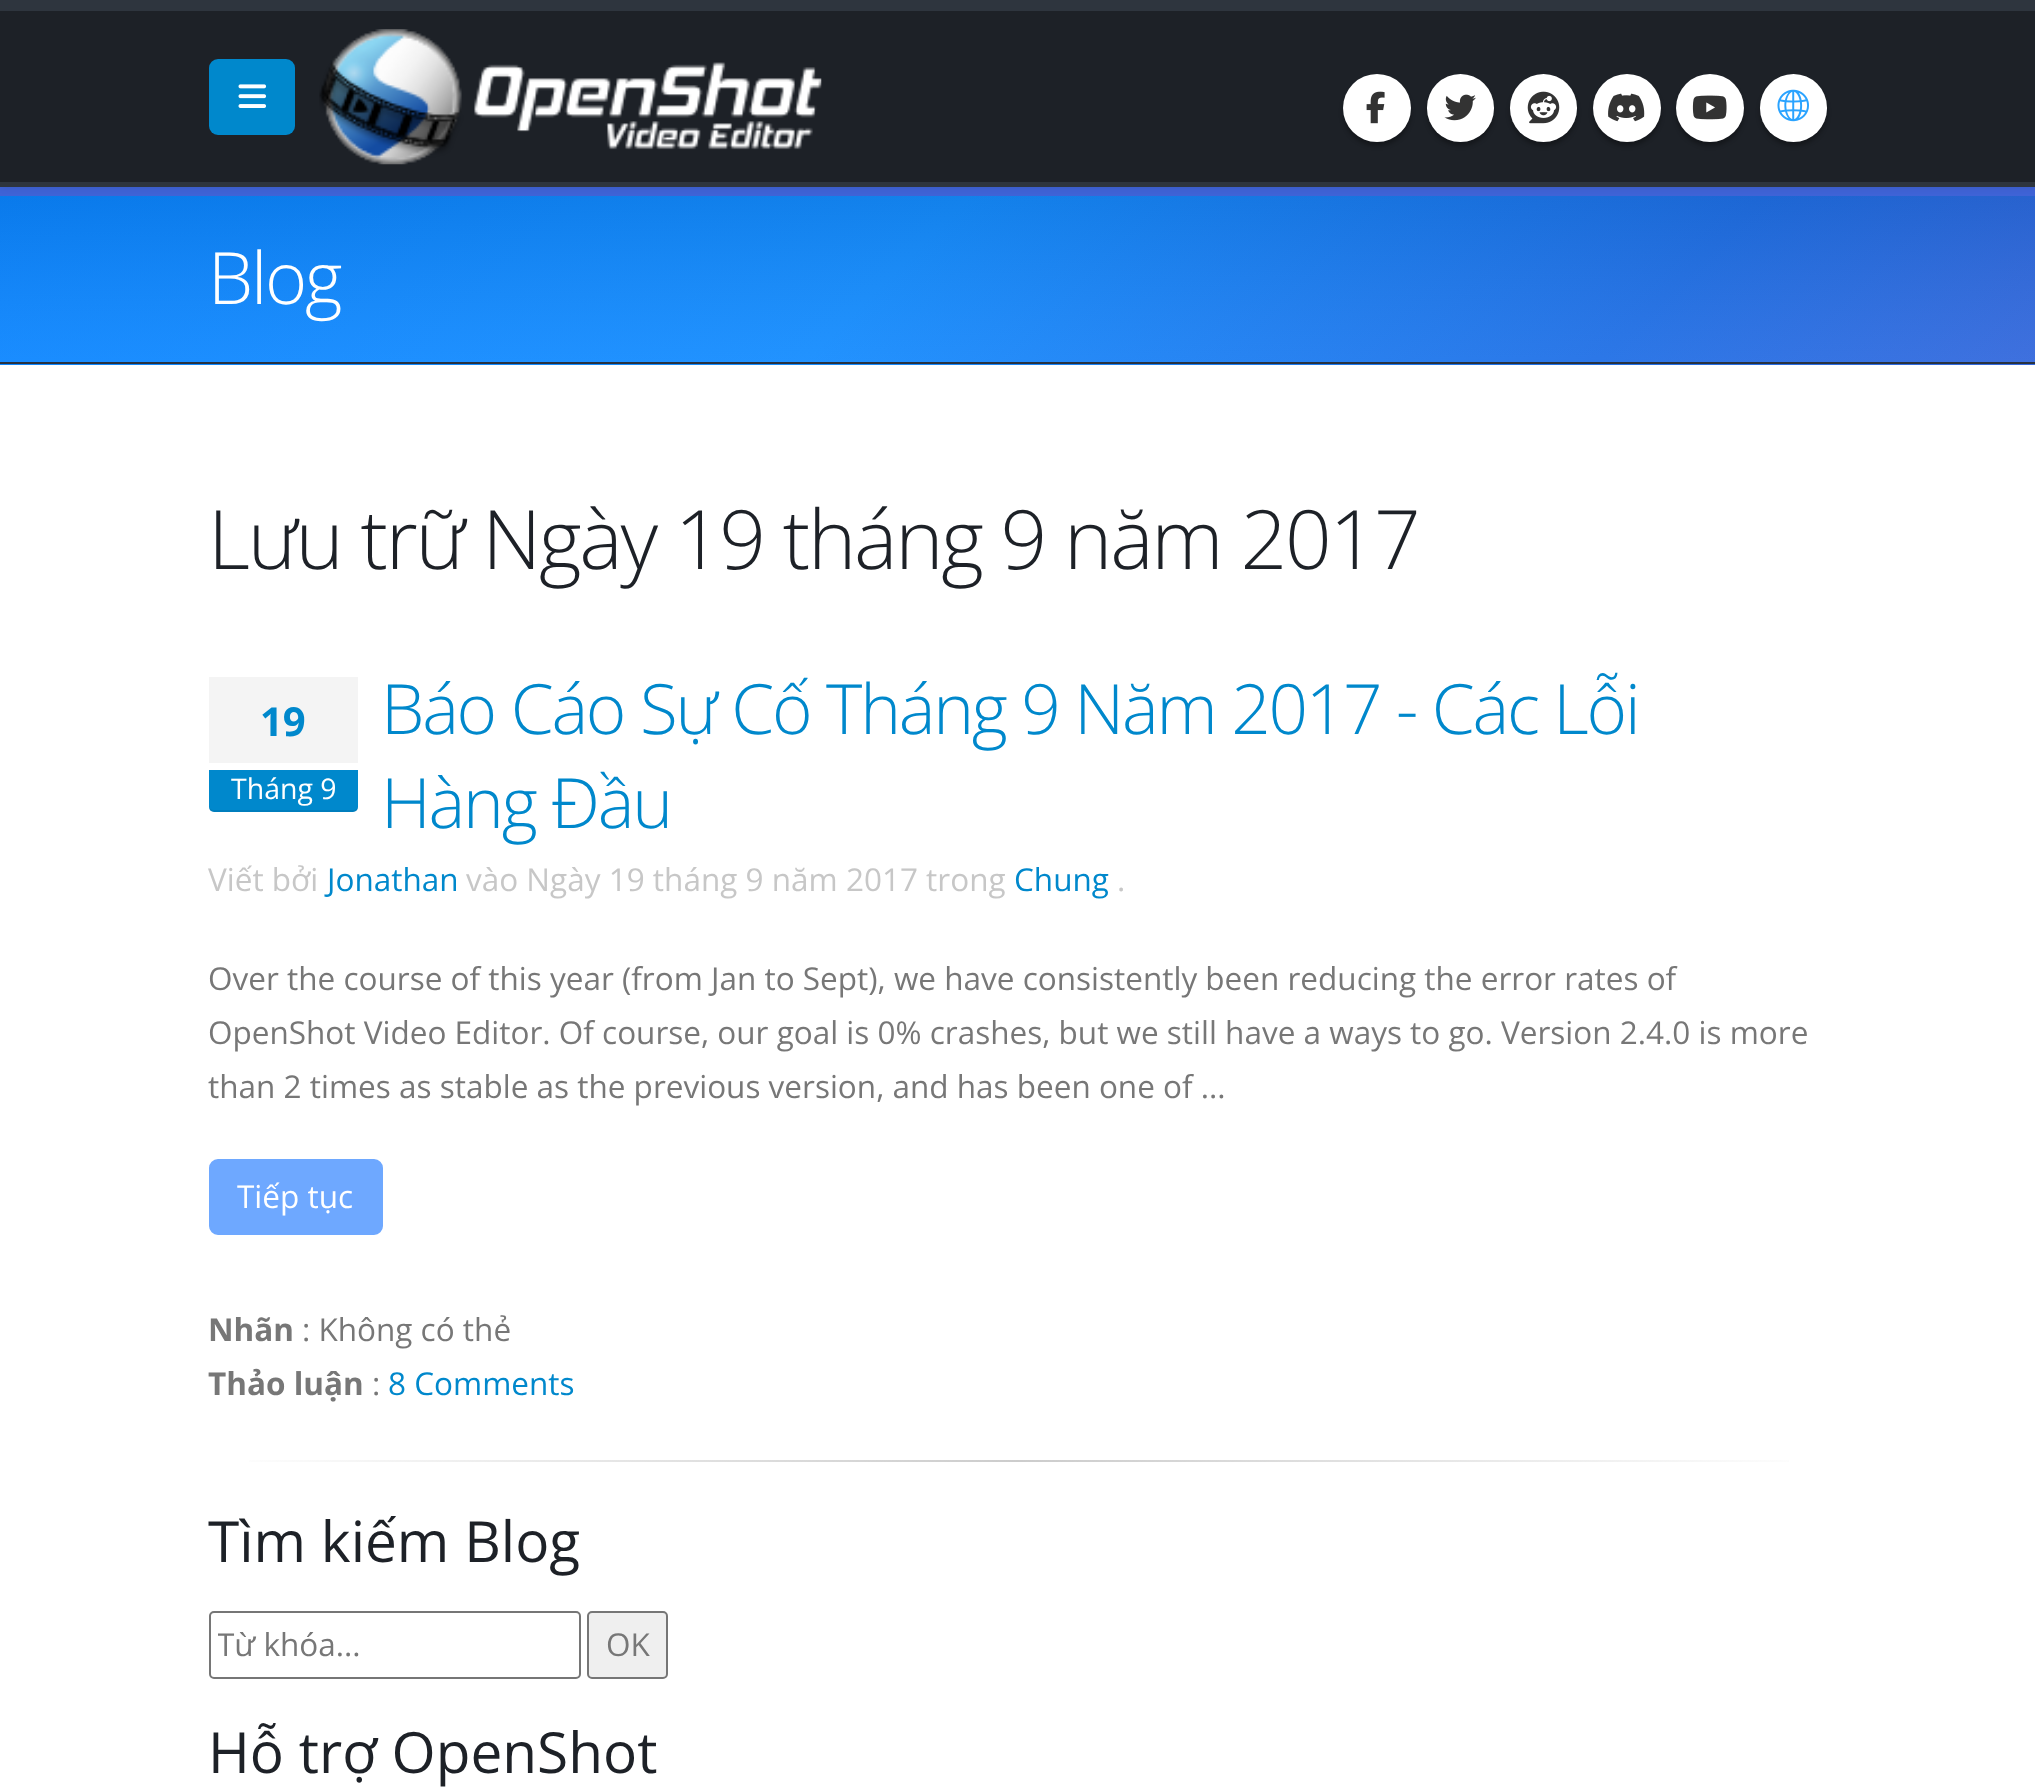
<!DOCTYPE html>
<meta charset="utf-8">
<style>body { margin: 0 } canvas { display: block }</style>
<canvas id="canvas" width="2035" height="1792"></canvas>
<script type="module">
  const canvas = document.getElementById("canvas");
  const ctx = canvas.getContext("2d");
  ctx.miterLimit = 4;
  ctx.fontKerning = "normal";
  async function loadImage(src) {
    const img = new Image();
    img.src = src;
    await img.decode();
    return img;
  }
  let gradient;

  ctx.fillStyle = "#ffffff";
  ctx.fillRect(0, 0, 2035, 1792);
  gradient = ctx.createLinearGradient(935, -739, 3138, 1464);
  gradient.addColorStop(0, "#0a84ff");
  gradient.addColorStop(0.22, "#148cff");
  gradient.addColorStop(0.4, "#1f6fe6");
  gradient.addColorStop(0.56, "#3f63d6");
  gradient.addColorStop(0.74, "#6f66e8");
  gradient.addColorStop(0.86, "#8b69ff");
  gradient.addColorStop(1, "#4a3470");
  ctx.fillStyle = gradient;
  ctx.fillRect(0, 196, 2035, 169);
  ctx.fillStyle = "#3f63d6";
  ctx.fillRect(0, 187, 2035, 9);
  gradient = ctx.createLinearGradient(1018, 196, 1018, 362);
  gradient.addColorStop(0, "rgba(0, 0, 0, 0.08)");
  gradient.addColorStop(1, "rgba(255, 255, 255, 0.06)");
  ctx.fillStyle = gradient;
  ctx.fillRect(0, 196, 2035, 166);
  ctx.fillStyle = "rgba(0, 0, 0, 0.1)";
  ctx.filter = "blur(3.5px)";
  ctx.beginPath();
  ctx.rect(0, 0, 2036, 187);
  ctx.fill();
  ctx.filter = "none";
  ctx.fillStyle = "#1d2127";
  ctx.fillRect(0, 11, 2035, 171);
  ctx.fillStyle = "#2e353e";
  ctx.fillRect(0, 0, 2035, 11);
  ctx.fillRect(0, 182, 2035, 5);
  ctx.drawImage(await loadImage("img1.png"), 319, 29, 503, 136);
  ctx.fillStyle = "#0088cc";
  ctx.beginPath();
  ctx.roundRect(209, 59, 86, 76, 9);
  ctx.fill();
  ctx.drawImage(await loadImage("img2.png"), 238, 84, 29, 24);
  ctx.fillStyle = "rgba(0, 0, 0, 0.3)";
  ctx.filter = "blur(2px)";
  ctx.beginPath();
  ctx.roundRect(1343, 79, 68, 67, 33.5);
  ctx.fill();
  ctx.filter = "none";
  ctx.fillStyle = "#ffffff";
  ctx.beginPath();
  ctx.arc(1377, 108, 34, 0, Math.PI * 2);
  ctx.fill();
  ctx.drawImage(await loadImage("img3.png"), 1366, 91, 19, 33);
  ctx.fillStyle = "rgba(0, 0, 0, 0.3)";
  ctx.filter = "blur(2px)";
  ctx.beginPath();
  ctx.roundRect(1427, 79, 67, 67, 33.5);
  ctx.fill();
  ctx.filter = "none";
  ctx.fillStyle = "#ffffff";
  ctx.beginPath();
  ctx.roundRect(1427, 74, 67, 68, 33.5);
  ctx.fill();
  ctx.drawImage(await loadImage("img4.png"), 1444, 94, 32, 27);
  ctx.fillStyle = "rgba(0, 0, 0, 0.3)";
  ctx.filter = "blur(2px)";
  ctx.beginPath();
  ctx.roundRect(1510, 79, 67, 67, 33.5);
  ctx.fill();
  ctx.filter = "none";
  ctx.fillStyle = "#ffffff";
  ctx.beginPath();
  ctx.roundRect(1510, 74, 67, 68, 33.5);
  ctx.fill();
  ctx.drawImage(await loadImage("img5.png"), 1527, 91, 33, 33);
  ctx.fillStyle = "rgba(0, 0, 0, 0.3)";
  ctx.filter = "blur(2px)";
  ctx.beginPath();
  ctx.roundRect(1593, 79, 68, 67, 33.5);
  ctx.fill();
  ctx.filter = "none";
  ctx.fillStyle = "#ffffff";
  ctx.beginPath();
  ctx.arc(1627, 108, 34, 0, Math.PI * 2);
  ctx.fill();
  ctx.drawImage(await loadImage("img6.png"), 1608, 93, 37, 29);
  ctx.fillStyle = "rgba(0, 0, 0, 0.3)";
  ctx.filter = "blur(2px)";
  ctx.beginPath();
  ctx.roundRect(1676, 79, 68, 67, 33.5);
  ctx.fill();
  ctx.filter = "none";
  ctx.fillStyle = "#ffffff";
  ctx.beginPath();
  ctx.arc(1710, 108, 34, 0, Math.PI * 2);
  ctx.fill();
  ctx.drawImage(await loadImage("img7.png"), 1692, 95, 35, 25);
  ctx.fillStyle = "rgba(0, 0, 0, 0.3)";
  ctx.filter = "blur(2px)";
  ctx.beginPath();
  ctx.roundRect(1760, 79, 67, 67, 33.5);
  ctx.fill();
  ctx.filter = "none";
  ctx.fillStyle = "#ffffff";
  ctx.beginPath();
  ctx.roundRect(1760, 74, 67, 68, 33.5);
  ctx.fill();
  ctx.drawImage(await loadImage("img8.png"), 1777, 89, 32, 33);
  ctx.fillStyle = "#283241";
  ctx.fillRect(0, 362, 2035, 2);
  ctx.letterSpacing = "-2.25px";
  ctx.font = "300 72px Open Sans";
  ctx.fillStyle = "#ffffff";
  ctx.fillText("Blog", 208, 304);
  ctx.font = "300 81.9px Open Sans";
  ctx.fillStyle = "#1d2127";
  ctx.fillText("Lưu trữ Ngày 19 tháng 9 năm 2017", 208, 569);
  ctx.fillStyle = "#f4f4f4";
  ctx.fillRect(209, 677, 149, 86);
  ctx.letterSpacing = "0px";
  ctx.font = "bold 40px Open Sans";
  ctx.fillStyle = "#0088cc";
  ctx.fillText("19", 260, 736);
  ctx.beginPath();
  ctx.roundRect(209, 770, 149, 42, [0, 0, 5, 5]);
  ctx.fill();
  ctx.font = "28.5px Open Sans";
  ctx.fillStyle = "#ffffff";
  ctx.fillText("Tháng 9", 231, 799);
  ctx.fillStyle = "rgba(0, 0, 0, 0.07)";
  ctx.beginPath();
  ctx.moveTo(209, 806);
  ctx.lineTo(209, 807);
  ctx.bezierCurveTo(209, 810, 211, 812, 214, 812);
  ctx.lineTo(353, 812);
  ctx.bezierCurveTo(356, 812, 358, 810, 358, 807);
  ctx.lineTo(358, 806);
  ctx.bezierCurveTo(358, 808, 356, 810, 353, 810);
  ctx.lineTo(214, 810);
  ctx.bezierCurveTo(211, 810, 209, 808, 209, 806);
  ctx.closePath();
  ctx.fill();
  ctx.letterSpacing = "-2.25px";
  ctx.font = "300 69.25px Open Sans";
  ctx.fillStyle = "#0088cc";
  ctx.fillText("Báo Cáo Sự Cố Tháng 9 Năm 2017 - Các Lỗi", 381, 734);
  ctx.fillText("Hàng Đầu", 381, 828);
  ctx.letterSpacing = "0px";
  ctx.font = "31.5px Open Sans";
  ctx.fillStyle = "#c7c7c7";
  ctx.fillText("Viết bởi", 208, 891);
  ctx.fillStyle = "#0088cc";
  ctx.fillText("Jonathan", 327, 891);
  ctx.fillStyle = "#c7c7c7";
  ctx.fillText("vào Ngày 19 tháng 9 năm 2017 trong", 466, 891);
  ctx.fillStyle = "#0088cc";
  ctx.fillText("Chung", 1014, 891);
  ctx.fillStyle = "#c7c7c7";
  ctx.fillText(".", 1117, 891);
  ctx.fillStyle = "#777777";
  ctx.fillText("Over the course of this year (from Jan to Sept), we have consistently been reducing the error rates of", 208, 990);
  ctx.fillText("OpenShot Video Editor. Of course, our goal is 0% crashes, but we still have a ways to go. Version 2.4.0 is more", 208, 1044);
  ctx.fillText("than 2 times as stable as the previous version, and has been one of ...", 208, 1098);
  ctx.fillStyle = "#6ea8ff";
  ctx.beginPath();
  ctx.roundRect(210, 1160, 172, 74, 8);
  ctx.fill();
  ctx.strokeStyle = "#6ea8ff";
  ctx.lineWidth = 2;
  ctx.stroke();
  ctx.fillStyle = "#ffffff";
  ctx.fillText("Tiếp tục", 237, 1208);
  ctx.font = "bold 31.5px Open Sans";
  ctx.fillStyle = "#777777";
  ctx.fillText("Nhãn", 208, 1341);
  ctx.font = "31.5px Open Sans";
  ctx.fillText(": Không có thẻ", 302, 1341);
  ctx.font = "bold 31.5px Open Sans";
  ctx.fillText("Thảo luận", 208, 1395);
  ctx.font = "31.5px Open Sans";
  ctx.fillText(":", 372, 1395);
  ctx.fillStyle = "#0088cc";
  ctx.fillText("8 Comments", 388, 1395);
  gradient = ctx.createLinearGradient(209, 1461, 1829, 1461);
  gradient.addColorStop(0, "#ffffff");
  gradient.addColorStop(0.5, "#cccccc");
  gradient.addColorStop(1, "#ffffff");
  ctx.fillStyle = gradient;
  ctx.fillRect(249, 1460, 1540, 2);
  ctx.font = "56.75px Open Sans";
  ctx.fillStyle = "#1d2127";
  ctx.fillText("Tìm kiếm Blog", 208, 1562);
  ctx.beginPath();
  ctx.roundRect(210, 1612, 370, 66, 4);
  ctx.strokeStyle = "#767676";
  ctx.stroke();
  ctx.save();
  ctx.beginPath();
  ctx.rect(218, 1622, 354, 43);
  ctx.clip();
  ctx.font = "31.5px Open Sans";
  ctx.fillStyle = "#777777";
  ctx.fillText("Từ khóa...", 217, 1656);
  ctx.restore();
  ctx.fillStyle = "#efefef";
  ctx.beginPath();
  ctx.roundRect(588, 1612, 79, 66, 4);
  ctx.fill();
  ctx.stroke();
  ctx.font = "31.5px Open Sans";
  ctx.fillStyle = "#777777";
  ctx.fillText("OK", 606, 1656);
  ctx.font = "56.75px Open Sans";
  ctx.fillStyle = "#1d2127";
  ctx.fillText("Hỗ trợ OpenShot", 208, 1773);
</script>
